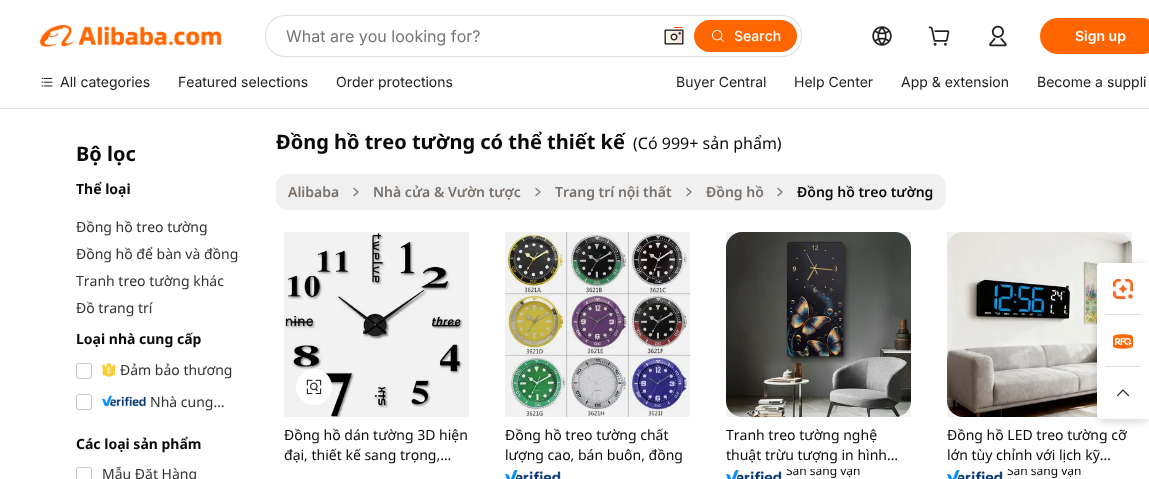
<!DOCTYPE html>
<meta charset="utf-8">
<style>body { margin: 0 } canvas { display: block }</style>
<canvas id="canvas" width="1149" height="479"></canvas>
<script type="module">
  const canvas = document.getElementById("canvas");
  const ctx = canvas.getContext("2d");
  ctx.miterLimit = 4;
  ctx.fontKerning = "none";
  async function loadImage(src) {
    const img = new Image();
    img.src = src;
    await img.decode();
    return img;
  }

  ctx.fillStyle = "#ffffff";
  ctx.fillRect(0, 0, 1149, 479);
  ctx.fillStyle = "#dddddd";
  ctx.fillRect(0, 108, 1149, 1);
  ctx.drawImage(await loadImage("img1.png"), 40, 25, 182, 22);
  ctx.beginPath();
  ctx.roundRect(265, 15, 537, 42, 20);
  ctx.fill();
  ctx.fillStyle = "#ffffff";
  ctx.beginPath();
  ctx.roundRect(266, 16, 535, 40, 19);
  ctx.fill();
  ctx.font = "16px Inter";
  ctx.fillStyle = "#767676";
  ctx.fillText("What are you looking for?", 286, 42);
  ctx.drawImage(await loadImage("img2.png"), 664, 27, 20, 18);
  ctx.fillStyle = "#ff6600";
  ctx.beginPath();
  ctx.roundRect(694, 20, 103, 32, 16);
  ctx.fill();
  ctx.drawImage(await loadImage("img3.png"), 712, 30, 12, 12);
  ctx.font = "500 14px Inter";
  ctx.fillStyle = "#ffffff";
  ctx.fillText("Search", 734, 41);
  ctx.drawImage(await loadImage("img4.png"), 872, 26, 20, 20);
  ctx.drawImage(await loadImage("img5.png"), 928, 26, 22, 20);
  ctx.drawImage(await loadImage("img6.png"), 989, 25, 18, 22);
  ctx.fillStyle = "#ff6600";
  ctx.beginPath();
  ctx.roundRect(1040, 18, 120, 36, 18);
  ctx.fill();
  ctx.font = "600 14px Inter";
  ctx.fillStyle = "#ffffff";
  ctx.fillText("Sign up", 1075, 41);
  ctx.drawImage(await loadImage("img7.png"), 41, 77, 12, 10);
  ctx.font = "14px Inter";
  ctx.fillStyle = "#222222";
  ctx.fillText("All categories", 60, 87);
  ctx.fillText("Featured selections", 178, 87);
  ctx.fillText("Order protections", 336, 87);
  ctx.fillText("Buyer Central", 676, 87);
  ctx.fillText("Help Center", 794, 87);
  ctx.fillText("App & extension", 901, 87);
  ctx.fillText("Become a suppli", 1037, 87);
  ctx.font = "bold 20px Noto Sans";
  ctx.fillStyle = "#0c0a09";
  ctx.fillText("Bộ lọc", 76, 161);
  ctx.font = "bold 14px Noto Sans";
  ctx.fillText("Thể loại", 76, 194);
  ctx.font = "14px Noto Sans";
  ctx.fillStyle = "#333333";
  ctx.fillText("Đồng hồ treo tường", 76, 232);
  ctx.fillText("Đồng hồ để bàn và đồng", 76, 259);
  ctx.fillText("Tranh treo tường khác", 76, 286);
  ctx.fillText("Đồ trang trí", 76, 313);
  ctx.font = "bold 14px Noto Sans";
  ctx.fillStyle = "#0c0a09";
  ctx.fillText("Loại nhà cung cấp", 76, 344);
  ctx.beginPath();
  ctx.roundRect(76.5, 363.5, 15, 15, 2.5);
  ctx.strokeStyle = "#c4c6cf";
  ctx.stroke();
  ctx.drawImage(await loadImage("img8.png"), 102, 363, 14, 14);
  ctx.font = "14px Noto Sans";
  ctx.fillStyle = "#333333";
  ctx.fillText("Đảm bảo thương", 120, 375);
  ctx.beginPath();
  ctx.roundRect(76.5, 394.5, 15, 15, 2.5);
  ctx.stroke();
  ctx.drawImage(await loadImage("img9.png"), 102, 395, 44, 12);
  ctx.fillText("Nhà cung…", 150, 407);
  ctx.font = "bold 14px Noto Sans";
  ctx.fillStyle = "#0c0a09";
  ctx.fillText("Các loại sản phẩm", 76, 449);
  ctx.beginPath();
  ctx.roundRect(76.5, 467.5, 15, 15, 2.5);
  ctx.stroke();
  ctx.save();
  ctx.beginPath();
  ctx.rect(102, 467, 95, 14);
  ctx.clip();
  ctx.font = "14px Noto Sans";
  ctx.fillStyle = "#333333";
  ctx.fillText("Mẫu Đặt Hàng", 102, 479);
  ctx.restore();
  ctx.font = "bold 20px Noto Sans";
  ctx.fillText("Đồng hồ treo tường có thể thiết kế", 276, 149);
  ctx.font = "16px Noto Sans";
  ctx.fillText("(Có 999+ sản phẩm)", 633, 149);
  ctx.fillStyle = "#f0f0f0";
  ctx.beginPath();
  ctx.roundRect(276, 174, 670, 36, 12);
  ctx.fill();
  ctx.font = "600 14px Noto Sans";
  ctx.fillStyle = "#78716c";
  ctx.fillText("Alibaba", 288, 197);
  ctx.beginPath();
  ctx.moveTo(354, 195.5);
  ctx.lineTo(358, 192);
  ctx.lineTo(354, 188.5);
  ctx.strokeStyle = "#78716c";
  ctx.lineWidth = 1.2;
  ctx.lineCap = "round";
  ctx.lineJoin = "round";
  ctx.stroke();
  ctx.fillText("Nhà cửa & Vườn tược", 373, 197);
  ctx.beginPath();
  ctx.moveTo(536, 195.5);
  ctx.lineTo(540, 192);
  ctx.lineTo(536, 188.5);
  ctx.stroke();
  ctx.fillText("Trang trí nội thất", 555, 197);
  ctx.beginPath();
  ctx.moveTo(687, 195.5);
  ctx.lineTo(691, 192);
  ctx.lineTo(687, 188.5);
  ctx.stroke();
  ctx.fillText("Đồng hồ", 706, 197);
  ctx.beginPath();
  ctx.moveTo(778, 195.5);
  ctx.lineTo(782, 192);
  ctx.lineTo(778, 188.5);
  ctx.stroke();
  ctx.fillStyle = "#0c0a09";
  ctx.fillText("Đồng hồ treo tường", 797, 197);
  ctx.drawImage(await loadImage("img10.png"), 284, 232, 179, 185);
  ctx.fillStyle = "rgba(0, 0, 0, 0.05)";
  ctx.fillRect(284, 232, 185, 185);
  ctx.fillStyle = "#ffffff";
  ctx.beginPath();
  ctx.arc(314, 387, 18, 0, Math.PI * 2);
  ctx.fill();
  ctx.drawImage(await loadImage("img11.png"), 306, 379, 16, 16);
  ctx.font = "14px Noto Sans";
  ctx.fillStyle = "#0c0a09";
  ctx.fillText("Đồng hồ dán tường 3D hiện", 284, 440);
  ctx.fillText("đại, thiết kế sang trọng,…", 284, 460);
  ctx.drawImage(await loadImage("img12.png"), 505, 232, 185, 185);
  ctx.fillStyle = "rgba(0, 0, 0, 0.05)";
  ctx.fillRect(505, 232, 185, 185);
  ctx.fillStyle = "#0c0a09";
  ctx.fillText("Đồng hồ treo tường chất", 505, 440);
  ctx.fillText("lượng cao, bán buôn, đồng", 505, 460);
  ctx.drawImage(await loadImage("img13.png"), 505, 470, 56, 9);
  ctx.drawImage(await loadImage("img14.png"), 726, 232, 185, 185);
  ctx.fillStyle = "rgba(0, 0, 0, 0.05)";
  ctx.fillRect(726, 232, 185, 185);
  ctx.fillStyle = "#0c0a09";
  ctx.fillText("Tranh treo tường nghệ", 726, 440);
  ctx.fillText("thuật trừu tượng in hình…", 726, 460);
  ctx.drawImage(await loadImage("img13.png"), 726, 470, 56, 9);
  ctx.save();
  ctx.beginPath();
  ctx.rect(726, 469, 185, 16);
  ctx.clip();
  ctx.font = "12px Noto Sans";
  ctx.fillText("Sẵn sàng vận", 786, 475);
  ctx.restore();
  ctx.drawImage(await loadImage("img15.png"), 947, 232, 185, 185);
  ctx.fillStyle = "rgba(0, 0, 0, 0.05)";
  ctx.fillRect(947, 232, 185, 185);
  ctx.fillStyle = "#0c0a09";
  ctx.fillText("Đồng hồ LED treo tường cỡ", 947, 440);
  ctx.fillText("lớn tùy chỉnh với lịch kỹ…", 947, 460);
  ctx.drawImage(await loadImage("img13.png"), 947, 470, 56, 9);
  ctx.save();
  ctx.beginPath();
  ctx.rect(947, 469, 185, 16);
  ctx.clip();
  ctx.font = "12px Noto Sans";
  ctx.fillText("Sẵn sàng vận", 1007, 475);
  ctx.restore();
  ctx.fillStyle = "rgba(0, 0, 0, 0.12)";
  ctx.filter = "blur(3px)";
  ctx.beginPath();
  ctx.roundRect(1095, 263, 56, 160, 10);
  ctx.fill();
  ctx.filter = "none";
  ctx.fillStyle = "#ffffff";
  ctx.beginPath();
  ctx.roundRect(1097, 263, 52, 156, [8, 0, 0, 8]);
  ctx.fill();
  ctx.beginPath();
  ctx.roundRect(1097, 263, 52, 52, 4);
  ctx.fill();
  ctx.drawImage(await loadImage("img16.png"), 1113, 279, 20, 20);
  ctx.fillStyle = "#dddddd";
  ctx.fillRect(1105, 314, 36, 1);
  ctx.drawImage(await loadImage("img17.png"), 1113, 334, 20, 15);
  ctx.fillRect(1105, 366, 36, 1);
  ctx.fillStyle = "#ffffff";
  ctx.beginPath();
  ctx.roundRect(1097, 367, 52, 52, 4);
  ctx.fill();
  ctx.drawImage(await loadImage("img18.png"), 1116, 389, 14, 8);
</script>
